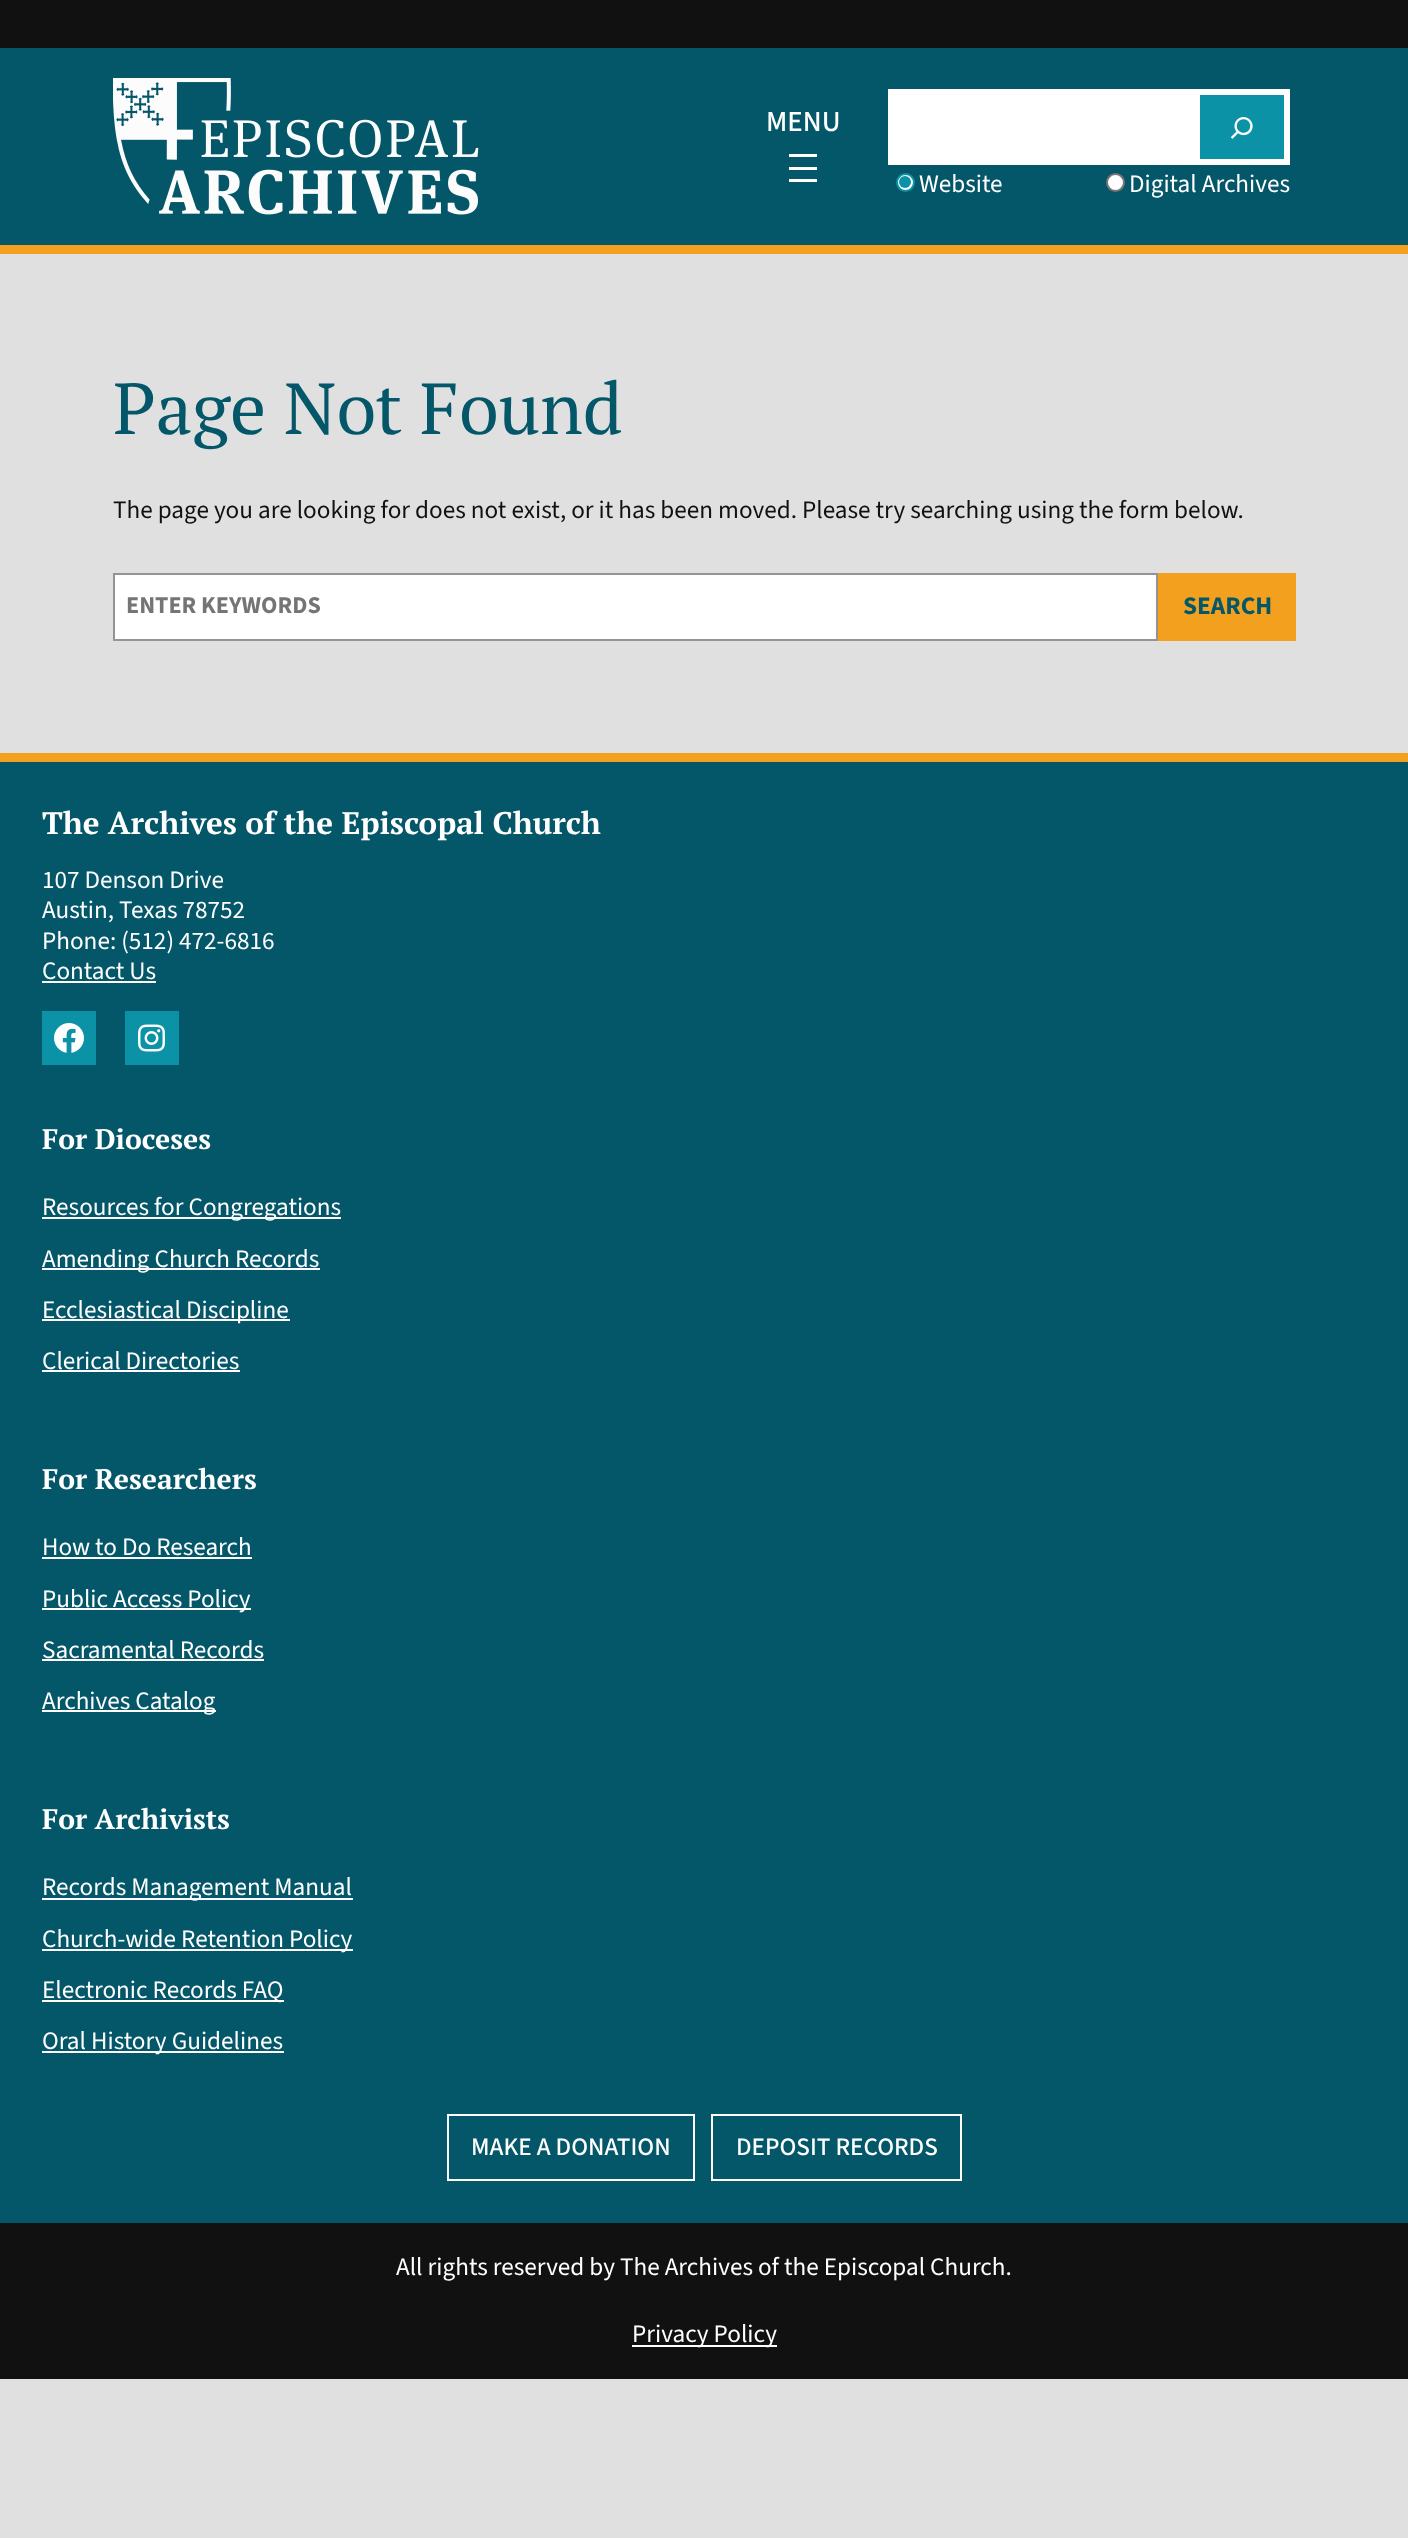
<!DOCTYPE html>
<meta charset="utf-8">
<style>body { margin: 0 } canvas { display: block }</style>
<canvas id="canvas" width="1408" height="2538"></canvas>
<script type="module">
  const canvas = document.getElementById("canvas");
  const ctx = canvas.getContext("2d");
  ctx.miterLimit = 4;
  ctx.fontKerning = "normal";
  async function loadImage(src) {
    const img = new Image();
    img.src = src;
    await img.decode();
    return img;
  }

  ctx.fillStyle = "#e0e0e0";
  ctx.fillRect(0, 0, 1408, 2538);
  ctx.fillStyle = "#111111";
  ctx.fillRect(0, 0, 1408, 48);
  ctx.fillStyle = "#045669";
  ctx.fillRect(0, 48, 1408, 197);
  ctx.fillStyle = "#f3a01e";
  ctx.fillRect(0, 245, 1408, 9);
  ctx.drawImage(await loadImage("img1.png"), 113, 78, 366, 137);
  ctx.font = "500 29px 'Source Sans 3'";
  ctx.fillStyle = "#ffffff";
  ctx.fillText("MENU", 766, 131);
  ctx.fillRect(789, 154, 28, 3);
  ctx.fillRect(789, 167, 28, 3);
  ctx.fillRect(789, 179, 28, 3);
  ctx.fillRect(888, 89, 402, 76);
  ctx.fillStyle = "#0c92a6";
  ctx.fillRect(1200, 95, 84, 64);
  ctx.drawImage(await loadImage("img2.png"), 1230, 117, 23, 22);
  ctx.fillStyle = "#ffffff";
  ctx.beginPath();
  ctx.arc(905.5, 182.5, 8.5, 0, Math.PI * 2);
  ctx.fill();
  ctx.strokeStyle = "#0c92a6";
  ctx.lineWidth = 2;
  ctx.stroke();
  ctx.fillStyle = "#0c92a6";
  ctx.beginPath();
  ctx.arc(905, 182, 6, 0, Math.PI * 2);
  ctx.fill();
  ctx.font = "25.2px 'Source Sans 3'";
  ctx.fillStyle = "#ffffff";
  ctx.fillText("Website", 919, 192);
  ctx.beginPath();
  ctx.arc(1115.5, 182.5, 8.5, 0, Math.PI * 2);
  ctx.fill();
  ctx.strokeStyle = "#767676";
  ctx.stroke();
  ctx.fillText("Digital Archives", 1129, 192);
  ctx.font = "72px PT Serif";
  ctx.fillStyle = "#045669";
  ctx.fillText("Page Not Found", 113, 434);
  ctx.font = "25.2px 'Source Sans 3'";
  ctx.fillStyle = "#111111";
  ctx.fillText("The page you are looking for does not exist, or it has been moved. Please try searching using the form below.", 113, 518);
  ctx.fillStyle = "#ffffff";
  ctx.beginPath();
  ctx.rect(114, 574, 1043, 66);
  ctx.fill();
  ctx.strokeStyle = "#949494";
  ctx.stroke();
  ctx.font = "bold 24px 'Source Sans 3'";
  ctx.fillStyle = "#757575";
  ctx.fillText("ENTER KEYWORDS", 126, 613);
  ctx.fillStyle = "#f3a01e";
  ctx.fillRect(1158, 573, 138, 68);
  ctx.font = "bold 25.2px 'Source Sans 3'";
  ctx.fillStyle = "#045669";
  ctx.fillText("SEARCH", 1183, 614);
  ctx.fillRect(0, 762, 1408, 1461);
  ctx.fillStyle = "#f3a01e";
  ctx.fillRect(0, 753, 1408, 9);
  ctx.font = "bold 31.25px PT Serif";
  ctx.fillStyle = "#ffffff";
  ctx.fillText("The Archives of the Episcopal Church", 42, 834);
  ctx.font = "25.2px 'Source Sans 3'";
  ctx.fillText("107 Denson Drive", 42, 888);
  ctx.fillText("Austin, Texas 78752", 42, 918);
  ctx.fillText("Phone: (512) 472-6816", 42, 949);
  ctx.fillText("Contact Us", 42, 979);
  ctx.fillRect(42, 981, 114, 2);
  ctx.fillStyle = "#0c92a6";
  ctx.fillRect(42, 1011, 54, 54);
  ctx.drawImage(await loadImage("img3.png"), 54, 1023, 30, 30);
  ctx.fillRect(125, 1011, 54, 54);
  ctx.drawImage(await loadImage("img4.png"), 138, 1024, 27, 28);
  ctx.font = "bold 28.25px PT Serif";
  ctx.fillStyle = "#ffffff";
  ctx.fillText("For Dioceses", 42, 1149);
  ctx.fillRect(42, 1217, 299, 2);
  ctx.font = "25.2px 'Source Sans 3'";
  ctx.fillText("Resources for Congregations", 42, 1215);
  ctx.fillRect(42, 1268, 278, 2);
  ctx.fillText("Amending Church Records", 42, 1267);
  ctx.fillRect(42, 1319, 248, 2);
  ctx.fillText("Ecclesiastical Discipline", 42, 1318);
  ctx.fillText("Clerical Directories", 42, 1369);
  ctx.fillRect(42, 1370, 198, 2);
  ctx.font = "bold 28.25px PT Serif";
  ctx.fillText("For Researchers", 42, 1489);
  ctx.font = "25.2px 'Source Sans 3'";
  ctx.fillText("How to Do Research", 42, 1555);
  ctx.fillRect(42, 1557, 210, 2);
  ctx.fillRect(42, 1608, 209, 2);
  ctx.fillText("Public Access Policy", 42, 1607);
  ctx.fillText("Sacramental Records", 42, 1658);
  ctx.fillRect(42, 1659, 222, 2);
  ctx.fillRect(42, 1710, 174, 2);
  ctx.fillText("Archives Catalog", 42, 1709);
  ctx.font = "bold 28.25px PT Serif";
  ctx.fillText("For Archivists", 42, 1829);
  ctx.fillRect(42, 1898, 311, 2);
  ctx.font = "25.2px 'Source Sans 3'";
  ctx.fillText("Records Management Manual", 42, 1895);
  ctx.fillRect(42, 1949, 311, 2);
  ctx.fillText("Church-wide Retention Policy", 42, 1947);
  ctx.fillRect(42, 2000, 242, 2);
  ctx.fillText("Electronic Records FAQ", 42, 1998);
  ctx.fillRect(42, 2051, 242, 2);
  ctx.fillText("Oral History Guidelines", 42, 2049);
  ctx.strokeStyle = "#ffffff";
  ctx.strokeRect(448, 2115, 246, 65);
  ctx.font = "500 25.2px 'Source Sans 3'";
  ctx.fillText("MAKE A DONATION", 471, 2155);
  ctx.strokeRect(712, 2115, 249, 65);
  ctx.fillText("DEPOSIT RECORDS", 736, 2155);
  ctx.fillStyle = "#111111";
  ctx.fillRect(0, 2223, 1408, 156);
  ctx.font = "25.2px 'Source Sans 3'";
  ctx.fillStyle = "#ffffff";
  ctx.fillText("All rights reserved by The Archives of the Episcopal Church.", 396, 2275);
  ctx.fillRect(632, 2345, 145, 2);
  ctx.fillText("Privacy Policy", 632, 2342);
</script>
